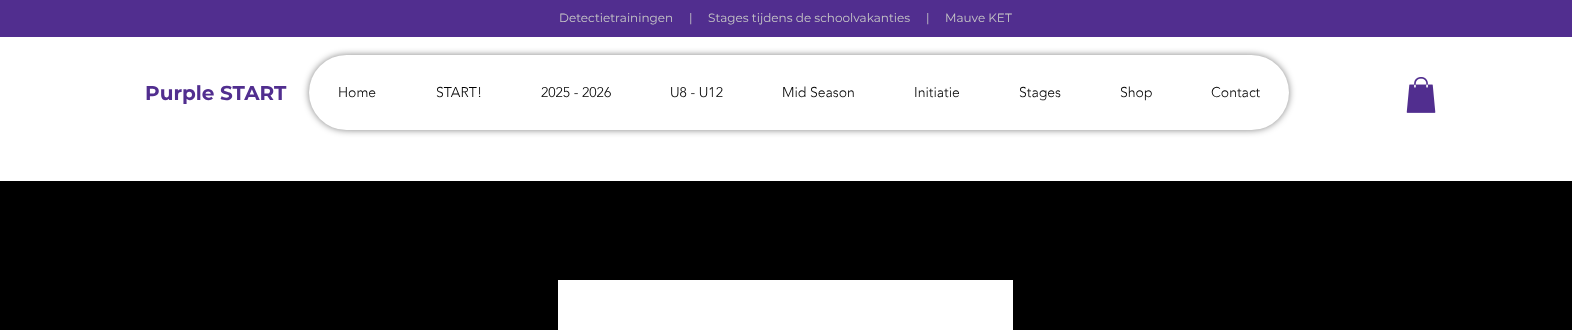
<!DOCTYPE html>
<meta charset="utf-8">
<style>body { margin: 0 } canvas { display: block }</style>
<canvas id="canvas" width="1572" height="330"></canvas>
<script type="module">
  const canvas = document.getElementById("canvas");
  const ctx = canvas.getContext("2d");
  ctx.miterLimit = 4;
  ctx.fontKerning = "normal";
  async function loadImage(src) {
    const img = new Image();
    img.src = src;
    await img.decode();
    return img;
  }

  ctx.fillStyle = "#ffffff";
  ctx.fillRect(0, 0, 1572, 330);
  ctx.fillStyle = "#512e8f";
  ctx.fillRect(0, 0, 1572, 37);
  ctx.font = "12px Montserrat";
  ctx.fillStyle = "#c7c7c7";
  ctx.fillText("Detectietrainingen", 559, 22);
  ctx.fillText("|", 689, 22);
  ctx.fillText("Stages tijdens de schoolvakanties", 708, 22);
  ctx.fillText("|", 926, 22);
  ctx.fillText("Mauve KET", 945, 22);
  ctx.font = "bold 20px Montserrat";
  ctx.fillStyle = "#512e8f";
  ctx.fillText("Purple START", 145, 100);
  ctx.fillStyle = "rgba(0, 0, 0, 0.49)";
  ctx.filter = "blur(3.5px)";
  ctx.beginPath();
  ctx.roundRect(309, 55, 980, 75, 37.5);
  ctx.fill();
  ctx.filter = "none";
  ctx.fillStyle = "#ffffff";
  ctx.beginPath();
  ctx.roundRect(309, 55, 980, 75, 37.5);
  ctx.fill();
  ctx.font = "300 14px 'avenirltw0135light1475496'";
  ctx.fillStyle = "#000000";
  ctx.fillText("Home", 338, 97);
  ctx.fillText("START!", 436, 97);
  ctx.fillText("2025 - 2026", 541, 97);
  ctx.fillText("U8 - U12", 670, 97);
  ctx.fillText("Mid Season", 782, 97);
  ctx.fillText("Initiatie", 914, 97);
  ctx.fillText("Stages", 1019, 97);
  ctx.fillText("Shop", 1120, 97);
  ctx.fillText("Contact", 1211, 97);
  ctx.drawImage(await loadImage("img1.png"), 1406, 77, 30, 36);
  ctx.fillRect(0, 181, 1572, 149);
  ctx.fillStyle = "#ffffff";
  ctx.fillRect(558, 280, 455, 50);
</script>
